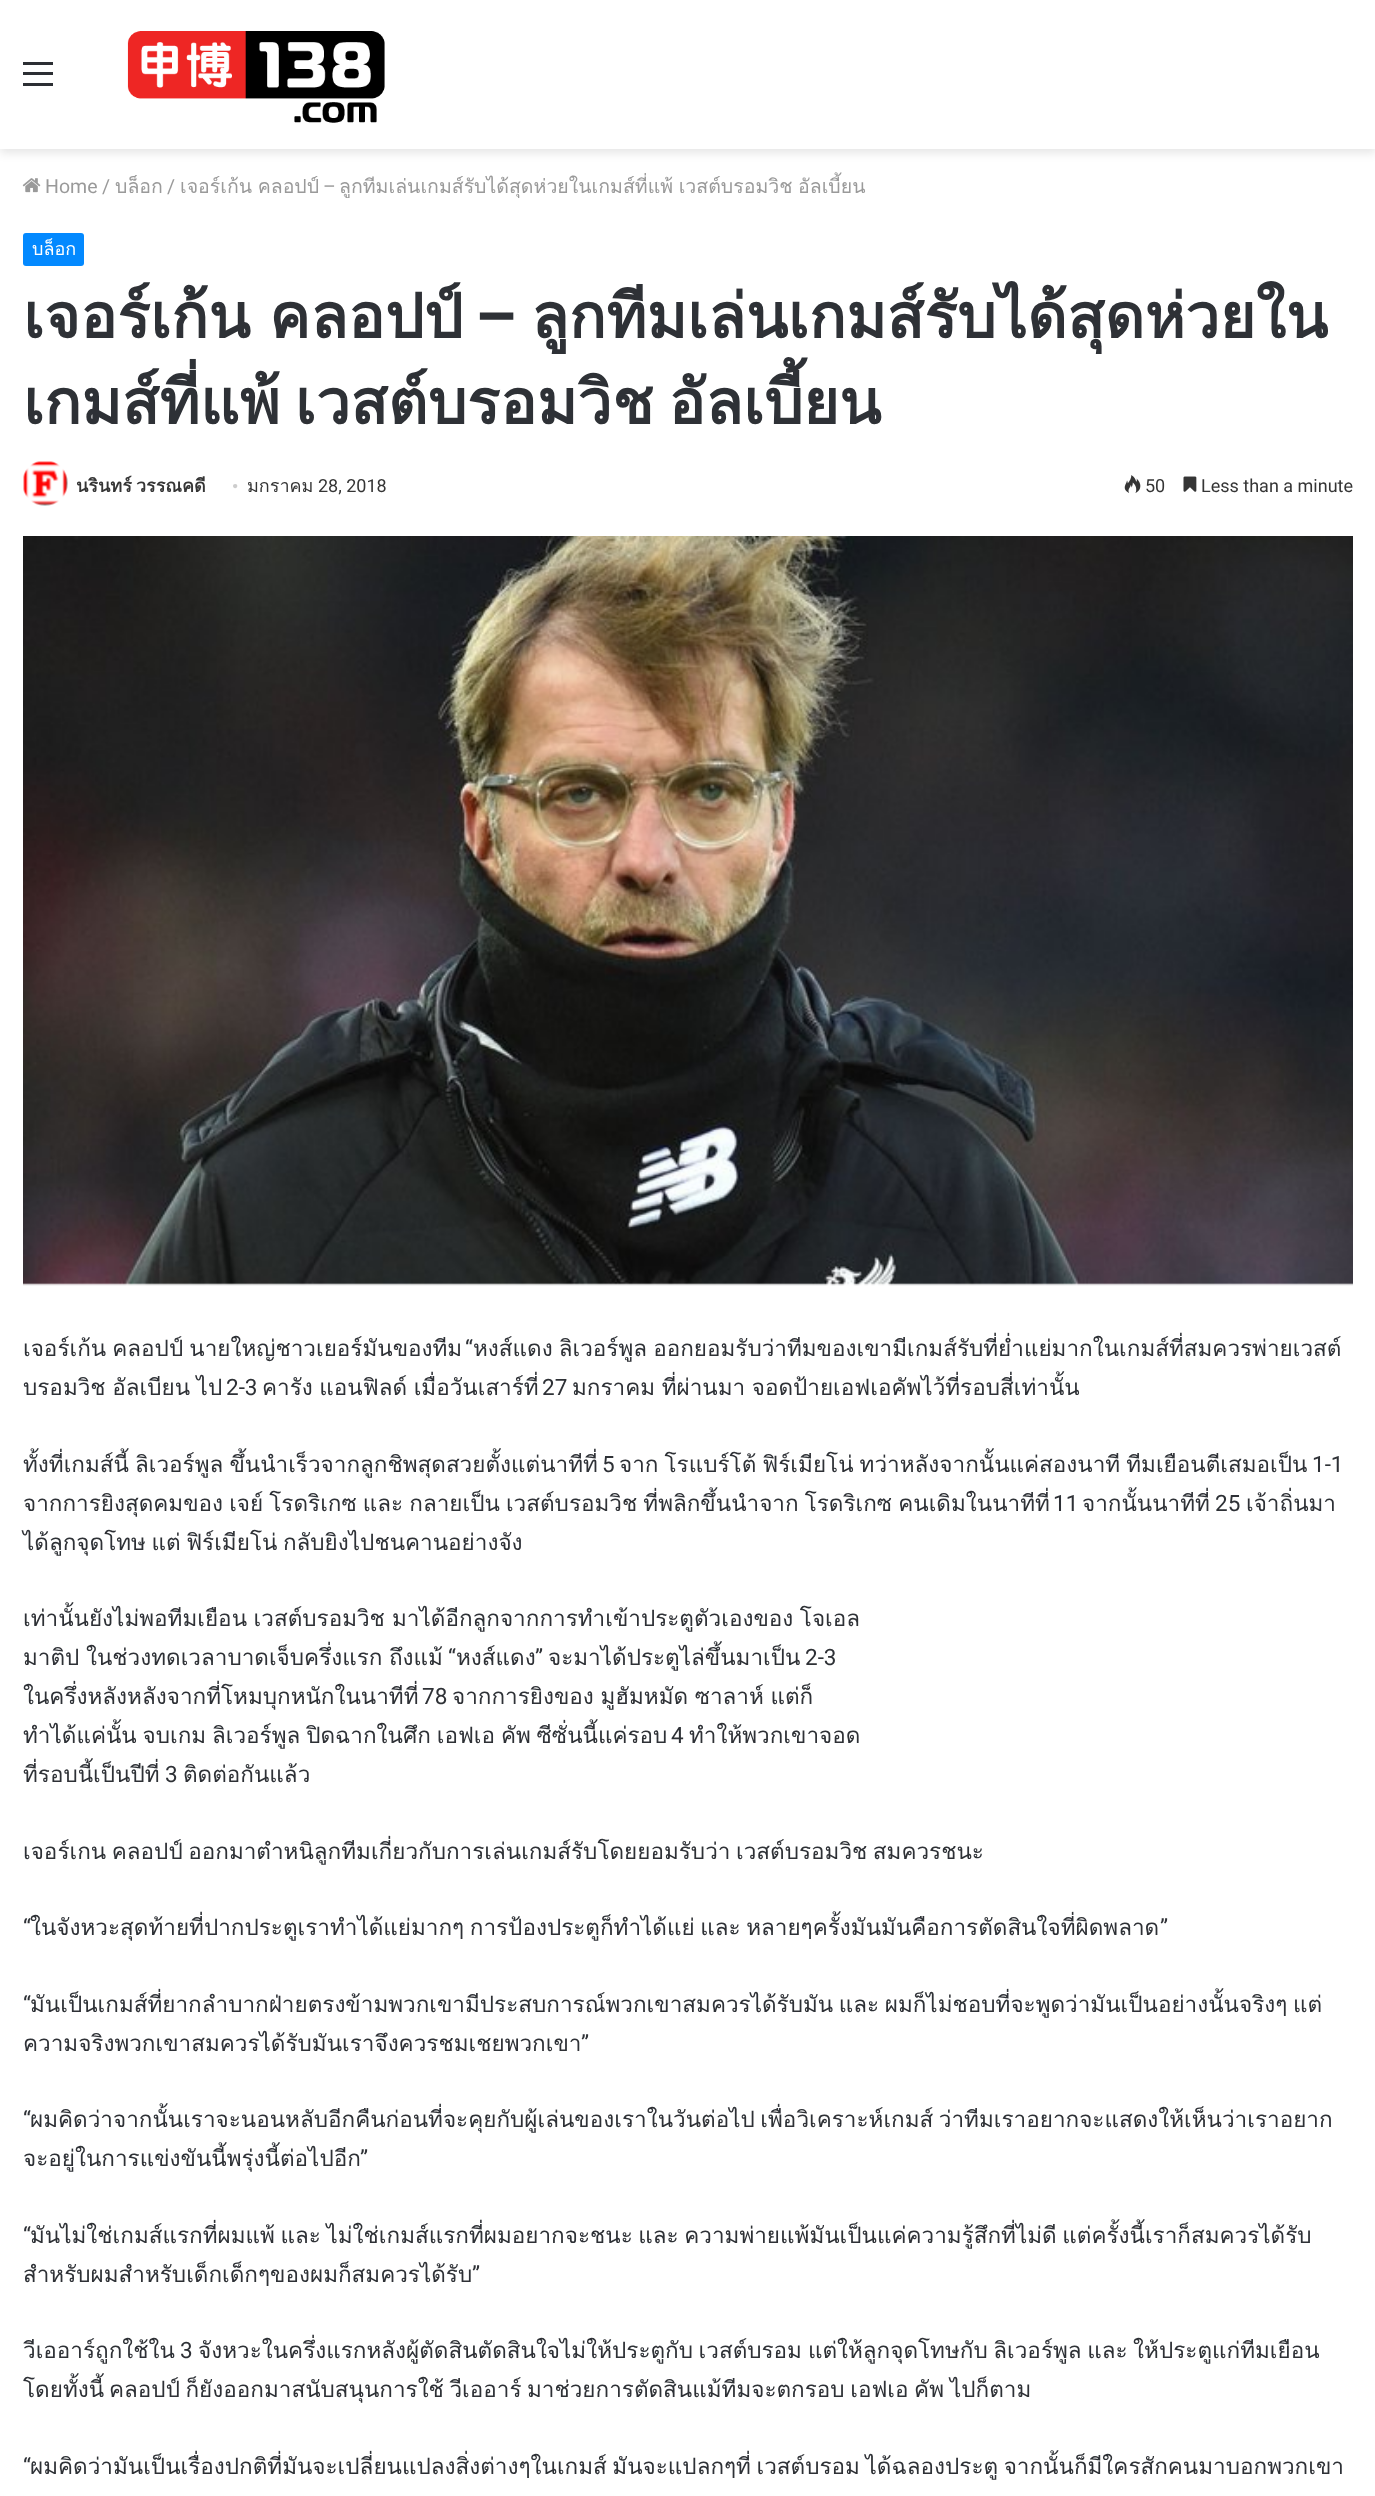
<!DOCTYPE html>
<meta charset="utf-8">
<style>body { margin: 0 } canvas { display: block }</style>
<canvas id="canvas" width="1375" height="2496"></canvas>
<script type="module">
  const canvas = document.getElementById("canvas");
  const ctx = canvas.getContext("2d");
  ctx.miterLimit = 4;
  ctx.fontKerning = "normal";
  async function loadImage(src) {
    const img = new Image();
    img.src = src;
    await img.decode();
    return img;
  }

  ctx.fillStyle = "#ffffff";
  ctx.fillRect(0, 0, 1375, 2496);
  ctx.fillStyle = "rgba(0, 0, 0, 0.1)";
  ctx.filter = "blur(5px)";
  ctx.beginPath();
  ctx.rect(0, 5, 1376, 148);
  ctx.fill();
  ctx.filter = "none";
  ctx.fillStyle = "#ffffff";
  ctx.fillRect(0, 0, 1375, 149);
  ctx.fillStyle = "#2c2f34";
  ctx.fillRect(23, 72, 30, 3);
  ctx.fillRect(23, 62, 30, 3);
  ctx.fillRect(23, 83, 30, 3);
  ctx.drawImage(await loadImage("img1.png"), 127, 31, 258, 92);
  ctx.drawImage(await loadImage("img2.png"), 22, 178, 19, 15);
  ctx.font = "19.5px Roboto";
  ctx.fillStyle = "#9a9a9a";
  ctx.fillText("Home", 45, 193);
  ctx.fillText("/", 102, 193);
  ctx.font = "19.5px Loma";
  ctx.fillText("บล็อก", 115, 193);
  ctx.font = "19.5px Roboto";
  ctx.fillText("/", 167, 193);
  ctx.wordSpacing = "-1px";
  ctx.font = "19.5px Loma";
  ctx.fillText("เจอร์เก้น คลอปป์", 180, 193);
  ctx.wordSpacing = "0px";
  ctx.font = "19.5px Roboto";
  ctx.fillText("–", 323, 193);
  ctx.wordSpacing = "-1px";
  ctx.font = "19.5px Loma";
  ctx.fillText("ลูกทีมเล่นเกมส์รับได้สุดห่วยในเกมส์ที่แพ้ เวสต์บรอมวิช อัลเบี้ยน", 339, 193);
  ctx.fillStyle = "#0389ff";
  ctx.beginPath();
  ctx.roundRect(23, 233, 61, 33, 3);
  ctx.fill();
  ctx.wordSpacing = "0px";
  ctx.font = "18px Loma";
  ctx.fillStyle = "#ffffff";
  ctx.fillText("บล็อก", 32, 255);
  ctx.wordSpacing = "-2px";
  ctx.font = "bold 61.5px Loma";
  ctx.fillStyle = "#2e3136";
  ctx.fillText("เจอร์เก้น คลอปป์", 23, 338);
  ctx.wordSpacing = "0px";
  ctx.font = "600 61.5px Poppins";
  ctx.fillText("–", 475, 338);
  ctx.font = "bold 61.5px Loma";
  ctx.fillText("ลูกทีมเล่นเกมส์รับได้สุดห่วยใน", 531, 338);
  ctx.wordSpacing = "-6px";
  ctx.fillText("เกมส์ที่แพ้ เวสต์บรอมวิช อัลเบี้ยน", 23, 424);
  ctx.drawImage(await loadImage("img3.png"), 23, 461, 45, 45);
  ctx.wordSpacing = "-2px";
  ctx.font = "bold 18px Loma";
  ctx.fillStyle = "#353535";
  ctx.fillText("นรินทร์ วรรณคดี", 76, 492);
  ctx.wordSpacing = "0px";
  ctx.font = "18px Liberation Serif";
  ctx.fillStyle = "#cdcdcd";
  ctx.fillText("•", 232, 492);
  ctx.font = "18px Loma";
  ctx.fillStyle = "#353535";
  ctx.fillText("มกราคม", 247, 492);
  ctx.font = "18px Roboto";
  ctx.fillText("28, 2018", 318, 492);
  ctx.drawImage(await loadImage("img4.png"), 1124, 475, 17, 18);
  ctx.fillText("50", 1145, 492);
  ctx.drawImage(await loadImage("img5.png"), 1183, 476, 14, 16);
  ctx.fillText("Less than a minute", 1201, 492);
  ctx.drawImage(await loadImage("img6.png"), 23, 536, 1330, 750);
  ctx.wordSpacing = "-1.5px";
  ctx.font = "22.5px Loma";
  ctx.fillStyle = "#2e3136";
  ctx.fillText("เจอร์เก้น คลอปป์ นายใหญ่ชาวเยอร์มันของทีม", 23, 1356);
  ctx.wordSpacing = "0px";
  ctx.font = "22.5px Roboto";
  ctx.fillText("“", 465, 1356);
  ctx.wordSpacing = "-1.5px";
  ctx.font = "22.5px Loma";
  ctx.fillText("หงส์แดง ลิเวอร์พูล ออกยอมรับว่าทีมของเขามีเกมส์รับที่ย่ำแย่มากในเกมส์ที่สมควรพ่ายเวสต์", 473, 1356);
  ctx.wordSpacing = "-1px";
  ctx.fillText("บรอมวิช อัลเบียน ไป", 23, 1395);
  ctx.wordSpacing = "0px";
  ctx.font = "22.5px Roboto";
  ctx.fillText("2-3", 226, 1395);
  ctx.wordSpacing = "-1px";
  ctx.font = "22.5px Loma";
  ctx.fillText("คารัง แอนฟิลด์ เมื่อวันเสาร์ที่", 262, 1395);
  ctx.wordSpacing = "0px";
  ctx.font = "22.5px Roboto";
  ctx.fillText("27", 542, 1395);
  ctx.wordSpacing = "-1px";
  ctx.font = "22.5px Loma";
  ctx.fillText("มกราคม ที่ผ่านมา จอดป้ายเอฟเอคัพไว้ที่รอบสี่เท่านั้น", 572, 1395);
  ctx.wordSpacing = "-1.5px";
  ctx.fillText("ทั้งที่เกมส์นี้ ลิเวอร์พูล ขึ้นนำเร็วจากลูกชิพสุดสวยตั้งแต่นาทีที่", 23, 1472);
  ctx.wordSpacing = "0px";
  ctx.font = "22.5px Roboto";
  ctx.fillText("5", 602, 1472);
  ctx.wordSpacing = "-1.5px";
  ctx.font = "22.5px Loma";
  ctx.fillText("จาก โรแบร์โต้ ฟิร์เมียโน่ ทว่าหลังจากนั้นแค่สองนาที ทีมเยือนตีเสมอเป็น", 619, 1472);
  ctx.wordSpacing = "0px";
  ctx.font = "22.5px Roboto";
  ctx.fillText("1-1", 1312, 1472);
  ctx.wordSpacing = "-1.5px";
  ctx.font = "22.5px Loma";
  ctx.fillText("จากการยิงสุดคมของ เจย์ โรดริเกซ และ กลายเป็น เวสต์บรอมวิช ที่พลิกขึ้นนำจาก โรดริเกซ คนเดิมในนาทีที่", 23, 1511);
  ctx.wordSpacing = "0px";
  ctx.font = "22.5px Roboto";
  ctx.fillText("11", 1053, 1511);
  ctx.font = "22.5px Loma";
  ctx.fillText("จากนั้นนาทีที่", 1082, 1511);
  ctx.font = "22.5px Roboto";
  ctx.fillText("25", 1215, 1511);
  ctx.font = "22.5px Loma";
  ctx.fillText("เจ้าถิ่นมา", 1246, 1511);
  ctx.wordSpacing = "-2px";
  ctx.fillText("ได้ลูกจุดโทษ แต่ ฟิร์เมียโน่ กลับยิงไปชนคานอย่างจัง", 23, 1550);
  ctx.wordSpacing = "-1px";
  ctx.fillText("เท่านั้นยังไม่พอทีมเยือน เวสต์บรอมวิช", 23, 1626);
  ctx.fillText("มาได้อีกลูกจากการทำเข้าประตูตัวเองของ โจเอล", 392, 1626);
  ctx.fillText("มาติป ในช่วงทดเวลาบาดเจ็บครึ่งแรก ถึงแม้", 23, 1665);
  ctx.wordSpacing = "0px";
  ctx.font = "22.5px Roboto";
  ctx.fillText("“", 448, 1665);
  ctx.font = "22.5px Loma";
  ctx.fillText("หงส์แดง", 456, 1665);
  ctx.font = "22.5px Roboto";
  ctx.fillText("”", 535, 1665);
  ctx.font = "22.5px Loma";
  ctx.fillText("จะมาได้ประตูไล่ขึ้นมาเป็น", 548, 1665);
  ctx.font = "22.5px Roboto";
  ctx.fillText("2-3", 805, 1665);
  ctx.font = "22.5px Loma";
  ctx.fillText("ในครึ่งหลังหลังจากที่โหมบุกหนักในนาทีที่", 23, 1704);
  ctx.font = "22.5px Roboto";
  ctx.fillText("78", 422, 1704);
  ctx.wordSpacing = "-1px";
  ctx.font = "22.5px Loma";
  ctx.fillText("จากการยิงของ มูฮัมหมัด ซาลาห์ แต่ก็", 452, 1704);
  ctx.wordSpacing = "-1.75px";
  ctx.fillText("ทำได้แค่นั้น จบเกม ลิเวอร์พูล ปิดฉากในศึก เอฟเอ คัพ ซีซั่นนี้แค่รอบ", 23, 1743);
  ctx.wordSpacing = "0px";
  ctx.font = "22.5px Roboto";
  ctx.fillText("4", 671, 1743);
  ctx.font = "22.5px Loma";
  ctx.fillText("ทำให้พวกเขาจอด", 689, 1743);
  ctx.fillText("ที่รอบนี้เป็นปีที่", 23, 1782);
  ctx.font = "22.5px Roboto";
  ctx.fillText("3", 165, 1782);
  ctx.font = "22.5px Loma";
  ctx.fillText("ติดต่อกันแล้ว", 183, 1782);
  ctx.wordSpacing = "-2px";
  ctx.fillText("เจอร์เกน คลอปป์ ออกมาตำหนิลูกทีมเกี่ยวกับการเล่นเกมส์รับโดยยอมรับว่า เวสต์บรอมวิช สมควรชนะ", 23, 1859);
  ctx.wordSpacing = "0px";
  ctx.font = "22.5px Roboto";
  ctx.fillText("“", 23, 1935);
  ctx.wordSpacing = "-2px";
  ctx.font = "22.5px Loma";
  ctx.fillText("ในจังหวะสุดท้ายที่ปากประตูเราทำได้แย่มากๆ การป้องประตูก็ทำได้แย่ และ หลายๆครั้งมันมันคือการตัดสินใจที่ผิดพลาด", 30, 1935);
  ctx.wordSpacing = "0px";
  ctx.font = "22.5px Roboto";
  ctx.fillText("”", 1160, 1935);
  ctx.fillText("“", 23, 2012);
  ctx.wordSpacing = "-2px";
  ctx.font = "22.5px Loma";
  ctx.fillText("มันเป็นเกมส์ที่ยากลำบากฝ่ายตรงข้ามพวกเขามีประสบการณ์พวกเขาสมควรได้รับมัน และ ผมก็ไม่ชอบที่จะพูดว่ามันเป็นอย่างนั้นจริงๆ แต่", 30, 2012);
  ctx.wordSpacing = "0px";
  ctx.fillText("ความจริงพวกเขาสมควรได้รับมันเราจึงควรชมเชยพวกเขา", 23, 2051);
  ctx.font = "22.5px Roboto";
  ctx.fillText("”", 581, 2051);
  ctx.fillText("“", 23, 2127);
  ctx.wordSpacing = "-2px";
  ctx.font = "22.5px Loma";
  ctx.fillText("ผมคิดว่าจากนั้นเราจะนอนหลับอีกคืนก่อนที่จะคุยกับผู้เล่นของเราในวันต่อไป เพื่อวิเคราะห์เกมส์ ว่าทีมเราอยากจะแสดงให้เห็นว่าเราอยาก", 30, 2127);
  ctx.wordSpacing = "0px";
  ctx.fillText("จะอยู่ในการแข่งขันนี้พรุ่งนี้ต่อไปอีก", 23, 2166);
  ctx.font = "22.5px Roboto";
  ctx.fillText("”", 360, 2166);
  ctx.fillText("“", 23, 2243);
  ctx.wordSpacing = "-2px";
  ctx.font = "22.5px Loma";
  ctx.fillText("มันไม่ใช่เกมส์แรกที่ผมแพ้ และ ไม่ใช่เกมส์แรกที่ผมอยากจะชนะ และ ความพ่ายแพ้มันเป็นแค่ความรู้สึกที่ไม่ดี แต่ครั้งนี้เราก็สมควรได้รับ", 30, 2243);
  ctx.wordSpacing = "0px";
  ctx.fillText("สำหรับผมสำหรับเด็กเด็กๆของผมก็สมควรได้รับ", 23, 2282);
  ctx.font = "22.5px Roboto";
  ctx.fillText("”", 472, 2282);
  ctx.font = "22.5px Loma";
  ctx.fillText("วีเออาร์ถูกใช้ใน", 23, 2358);
  ctx.font = "22.5px Roboto";
  ctx.fillText("3", 180, 2358);
  ctx.wordSpacing = "-2px";
  ctx.font = "22.5px Loma";
  ctx.fillText("จังหวะในครึ่งแรกหลังผู้ตัดสินตัดสินใจไม่ให้ประตูกับ เวสต์บรอม", 198, 2358);
  ctx.wordSpacing = "0px";
  ctx.fillText("แต่", 808, 2358);
  ctx.wordSpacing = "-2px";
  ctx.fillText("ให้ลูกจุดโทษกับ ลิเวอร์พูล และ ให้ประตูแก่ทีมเยือน", 837, 2358);
  ctx.wordSpacing = "0px";
  ctx.fillText("โดยทั้งนี้", 23, 2397);
  ctx.wordSpacing = "-2px";
  ctx.fillText("คลอปป์ ก็ยังออกมาสนับสนุนการใช้ วีเออาร์", 109, 2397);
  ctx.fillText("มาช่วยการตัดสินแม้ทีมจะตกรอบ เอฟเอ คัพ", 527, 2397);
  ctx.wordSpacing = "0px";
  ctx.fillText("ไปก็ตาม", 950, 2397);
  ctx.font = "22.5px Roboto";
  ctx.fillText("“", 23, 2474);
  ctx.wordSpacing = "-2px";
  ctx.font = "22.5px Loma";
  ctx.fillText("ผมคิดว่ามันเป็นเรื่องปกติที่มันจะเปลี่ยนแปลงสิ่งต่างๆในเกมส์ มันจะแปลกๆที่ เวสต์บรอม ได้ฉลองประตู จากนั้นก็มีใครสักคนมาบอกพวกเขา", 30, 2474);
</script>
